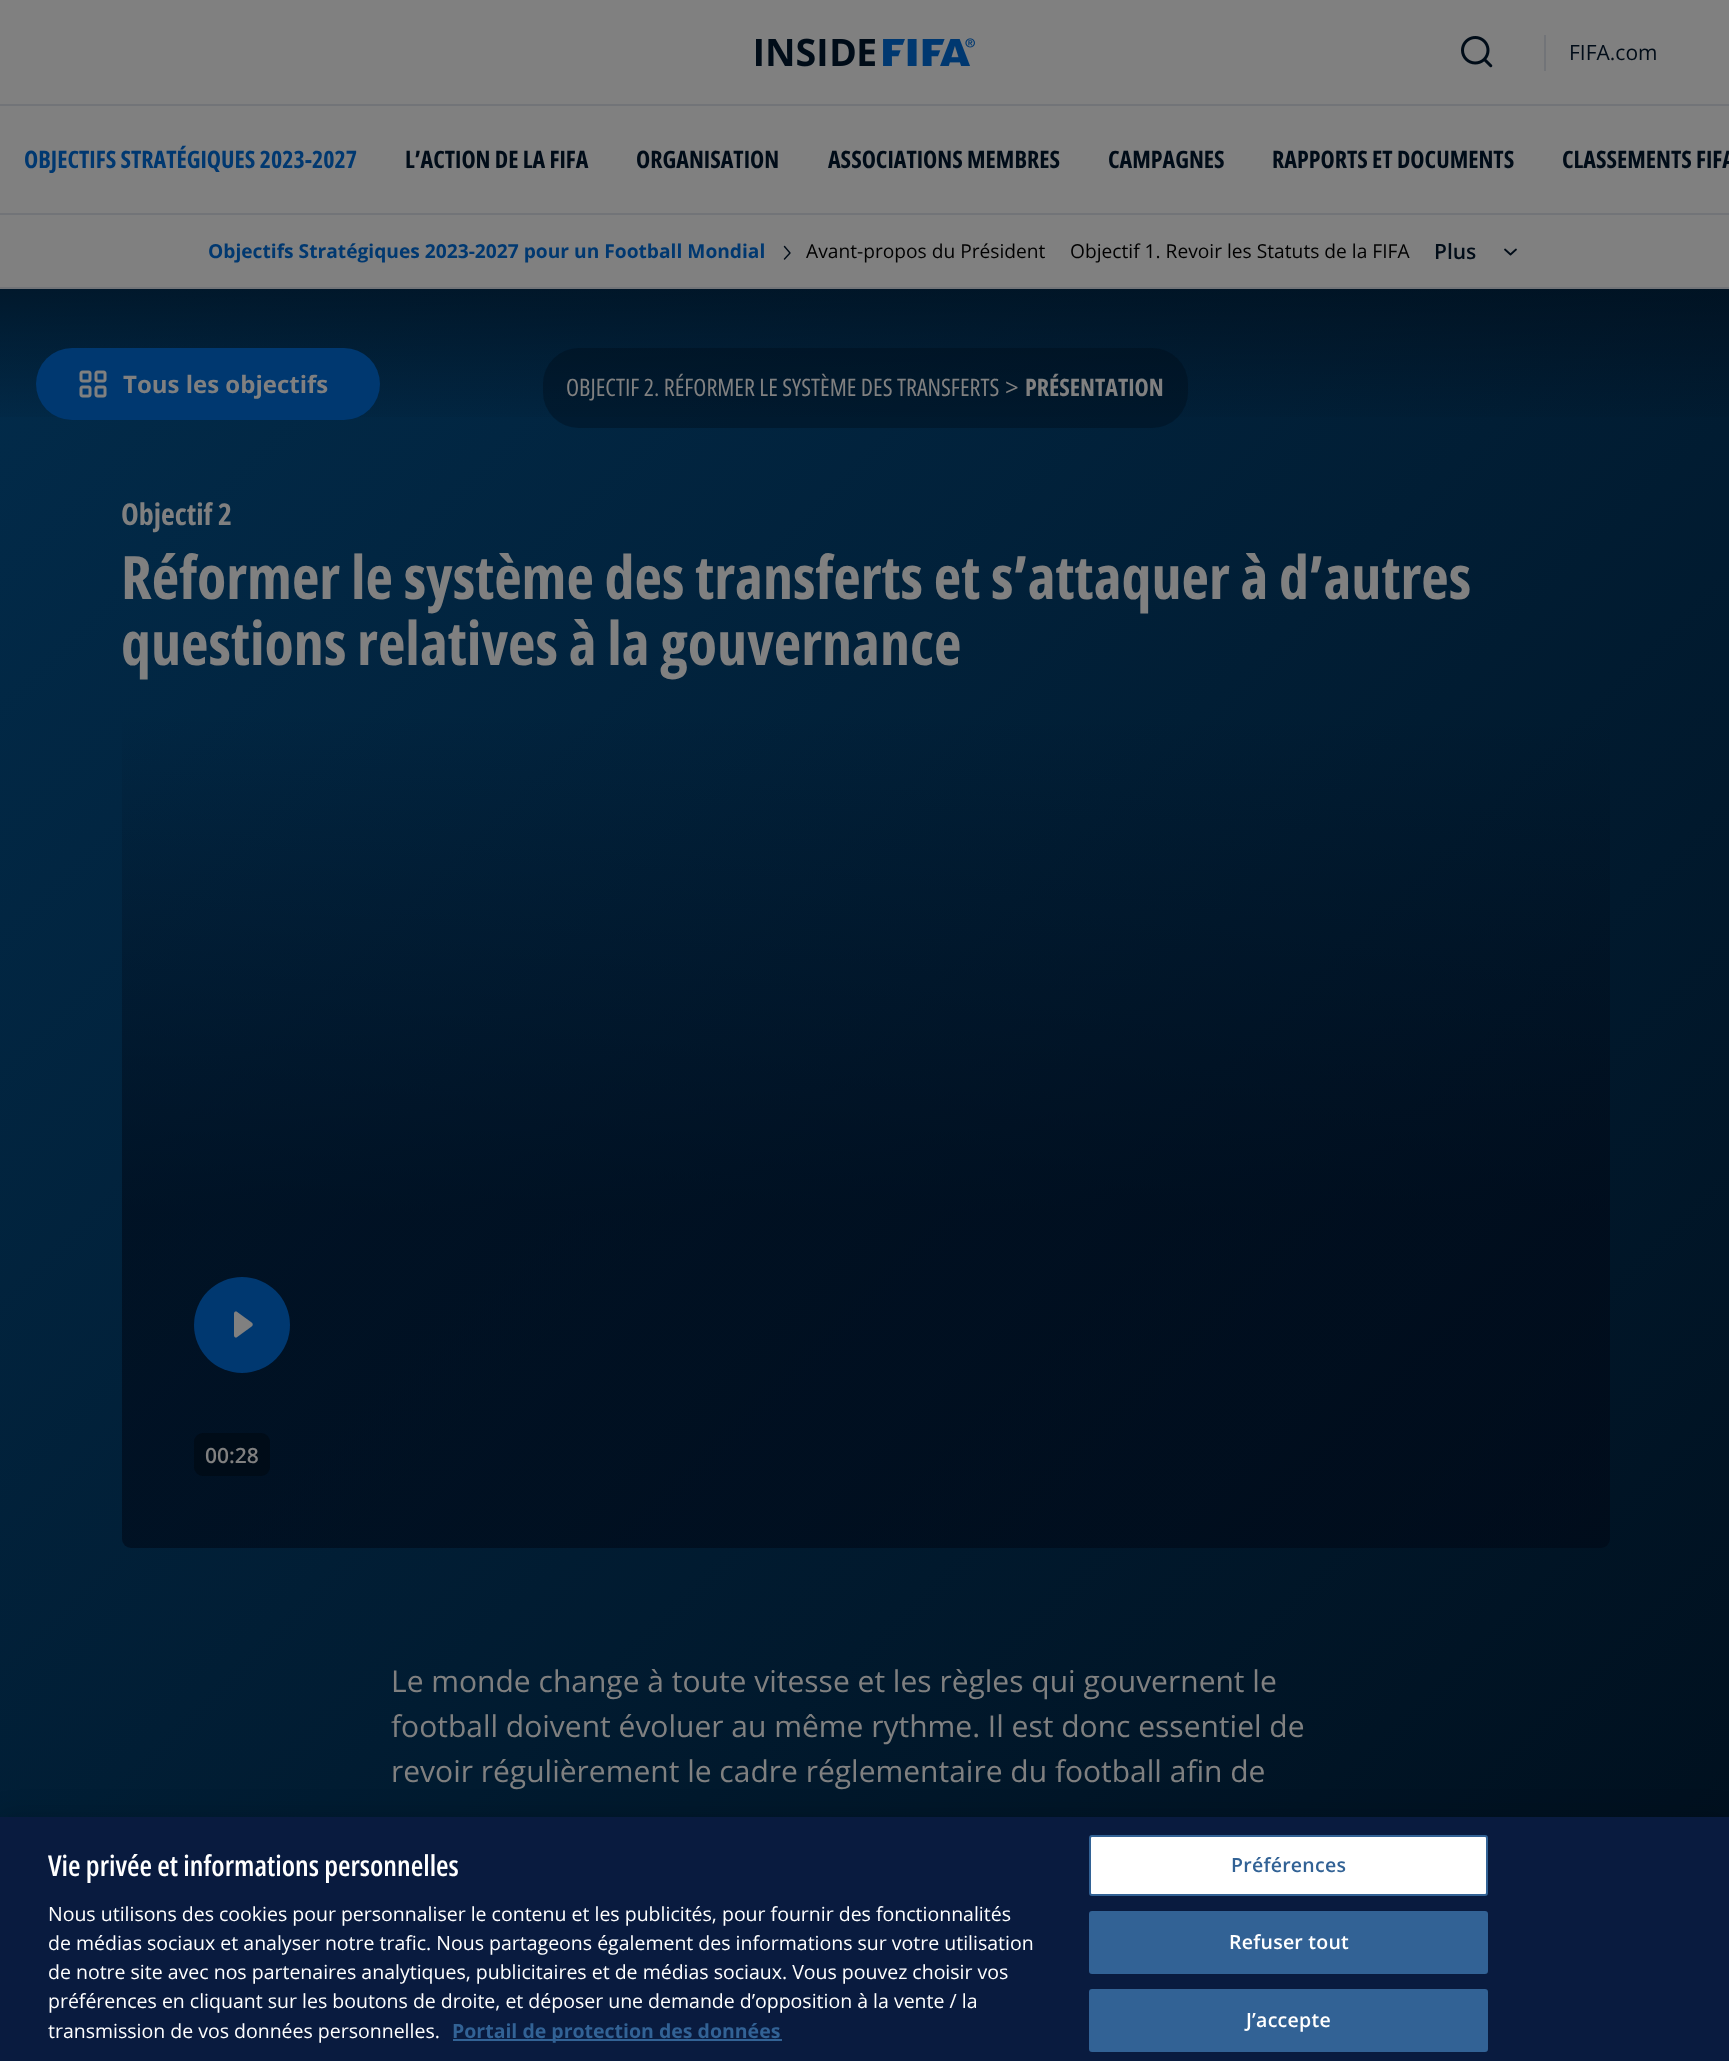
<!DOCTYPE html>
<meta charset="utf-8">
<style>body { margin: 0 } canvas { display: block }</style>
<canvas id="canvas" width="1729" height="2061"></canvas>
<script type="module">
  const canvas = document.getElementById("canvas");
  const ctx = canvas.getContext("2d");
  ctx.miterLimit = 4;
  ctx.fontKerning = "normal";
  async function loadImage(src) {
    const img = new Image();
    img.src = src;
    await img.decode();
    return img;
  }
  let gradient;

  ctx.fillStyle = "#808080";
  ctx.fillRect(0, 0, 1729, 2061);
  ctx.fillStyle = "#727478";
  ctx.fillRect(0, 104, 1729, 2);
  ctx.drawImage(await loadImage("img1.png"), 756, 38, 219, 29);
  ctx.fillRect(1544, 35, 2, 36);
  ctx.drawImage(await loadImage("img2.png"), 1461, 36, 32, 32);
  ctx.font = "21px Open Sans";
  ctx.fillStyle = "#000c18";
  ctx.fillText("FIFA.com", 1569, 60);
  ctx.fillStyle = "#727478";
  ctx.fillRect(0, 213, 1729, 2);
  ctx.font = "bold 24px Open Sans";
  ctx.fillStyle = "#003870";
  ctx.fillText("OBJECTIFS STRATÉGIQUES 2023-2027", 24, 168);
  ctx.fillStyle = "#000c18";
  ctx.fillText("L’ACTION DE LA FIFA", 405, 168);
  ctx.fillText("ORGANISATION", 636, 168);
  ctx.fillText("ASSOCIATIONS MEMBRES", 828, 168);
  ctx.fillText("CAMPAGNES", 1108, 168);
  ctx.fillText("RAPPORTS ET DOCUMENTS", 1272, 168);
  ctx.fillText("CLASSEMENTS FIFA", 1562, 168);
  ctx.fillStyle = "#727478";
  ctx.fillRect(0, 287, 1729, 2);
  ctx.font = "bold 19.2px 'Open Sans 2'";
  ctx.fillStyle = "#003870";
  ctx.fillText("Objectifs Stratégiques 2023-2027 pour un Football Mondial", 208, 258);
  ctx.beginPath();
  ctx.moveTo(784.5, 259);
  ctx.lineTo(790, 253);
  ctx.lineTo(784.5, 246.5);
  ctx.strokeStyle = "#000c18";
  ctx.lineWidth = 1.4;
  ctx.lineCap = "round";
  ctx.lineJoin = "round";
  ctx.stroke();
  ctx.font = "19.2px Open Sans";
  ctx.fillStyle = "#000000";
  ctx.fillText("Avant-propos du Président", 806, 258);
  ctx.fillText("Objectif 1. Revoir les Statuts de la FIFA", 1070, 258);
  ctx.font = "600 21px Open Sans";
  ctx.fillStyle = "#000c18";
  ctx.fillText("Plus", 1434, 259);
  ctx.beginPath();
  ctx.moveTo(1505, 249.5);
  ctx.lineTo(1510.5, 254.5);
  ctx.lineTo(1516, 249.5);
  ctx.lineWidth = 1.8;
  ctx.stroke();
  gradient = ctx.createLinearGradient(-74, 360, 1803, 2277);
  gradient.addColorStop(0.01, "#022b4a");
  gradient.addColorStop(1, "#000c18");
  ctx.fillStyle = gradient;
  ctx.fillRect(0, 289, 1729, 1528);
  gradient = ctx.createLinearGradient(865, 288, 865, 429);
  gradient.addColorStop(0, "rgba(0, 12, 24, 0.6)");
  gradient.addColorStop(1, "rgba(0, 12, 24, 0)");
  ctx.fillStyle = gradient;
  ctx.fillRect(0, 289, 1729, 128);
  ctx.fillStyle = "#003870";
  ctx.beginPath();
  ctx.roundRect(36, 348, 344, 72, 36);
  ctx.fill();
  ctx.drawImage(await loadImage("img3.png"), 79, 370, 28, 28);
  ctx.font = "bold 24px 'Open Sans 2'";
  ctx.fillStyle = "#808080";
  ctx.fillText("Tous les objectifs", 123, 393);
  ctx.fillStyle = "rgba(0, 12, 24, 0.4)";
  ctx.beginPath();
  ctx.roundRect(543, 348, 645, 80, 36);
  ctx.fill();
  ctx.font = "24px 'Open Sans 2'";
  ctx.fillStyle = "#808080";
  ctx.fillText("OBJECTIF 2. RÉFORMER LE SYSTÈME DES TRANSFERTS", 566, 396);
  ctx.font = "24px Open Sans";
  ctx.fillText(">", 1005, 396);
  ctx.font = "bold 24px Open Sans";
  ctx.fillText("PRÉSENTATION", 1025, 396);
  ctx.font = "bold 30px Open Sans";
  ctx.fillText("Objectif 2", 121, 525);
  ctx.font = "bold 60px Open Sans";
  ctx.fillText("Réformer le système des transferts et s’attaquer à d’autres", 121, 599);
  ctx.fillText("questions relatives à la gouvernance", 121, 665);
  gradient = ctx.createLinearGradient(866, 711, 866, 1548);
  gradient.addColorStop(0, "rgba(0, 8, 22, 0)");
  gradient.addColorStop(0.6, "rgba(0, 8, 22, 0.6)");
  ctx.fillStyle = gradient;
  ctx.beginPath();
  ctx.roundRect(122, 711, 1488, 837, 9);
  ctx.fill();
  ctx.fillStyle = "#003870";
  ctx.beginPath();
  ctx.arc(242, 1325, 48, 0, Math.PI * 2);
  ctx.fill();
  ctx.drawImage(await loadImage("img4.png"), 234, 1311, 19, 27);
  ctx.fillStyle = "#000c18";
  ctx.beginPath();
  ctx.roundRect(194, 1433, 76, 43, 9);
  ctx.fill();
  ctx.font = "600 21px Open Sans";
  ctx.fillStyle = "#808080";
  ctx.fillText("00:28", 205, 1463);
  ctx.font = "30px Open Sans";
  ctx.fillText("Le monde change à toute vitesse et les règles qui gouvernent le", 391, 1692);
  ctx.fillText("football doivent évoluer au même rythme. Il est donc essentiel de", 391, 1737);
  ctx.fillText("revoir régulièrement le cadre réglementaire du football afin de", 391, 1782);
  ctx.fillStyle = "rgba(0, 0, 0, 0.2)";
  ctx.filter = "blur(13.5px)";
  ctx.beginPath();
  ctx.rect(0, 1817, 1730, 244);
  ctx.fill();
  ctx.filter = "none";
  ctx.fillStyle = "#091b3f";
  ctx.fillRect(0, 1817, 1729, 244);
  ctx.font = "600 28.75px 'Open Sans 2'";
  ctx.fillStyle = "#ffffff";
  ctx.fillText("Vie privée et informations personnelles", 48, 1876);
  ctx.font = "19.5px Open Sans";
  ctx.fillText("Nous utilisons des cookies pour personnaliser le contenu et les publicités, pour fournir des fonctionnalités", 48, 1921);
  ctx.fillText("de médias sociaux et analyser notre trafic. Nous partageons également des informations sur votre utilisation", 48, 1950);
  ctx.fillText("de notre site avec nos partenaires analytiques, publicitaires et de médias sociaux. Vous pouvez choisir vos", 48, 1979);
  ctx.fillText("préférences en cliquant sur les boutons de droite, et déposer une demande d’opposition à la vente / la", 48, 2008);
  ctx.fillText("transmission de vos données personnelles.", 48, 2038);
  ctx.fillStyle = "#326295";
  ctx.fillRect(453, 2039, 329, 2);
  ctx.font = "bold 19.5px 'Open Sans 2'";
  ctx.fillText("Portail de protection des données", 452, 2038);
  ctx.fillStyle = "#ffffff";
  ctx.beginPath();
  ctx.roundRect(1090, 1836, 397, 59, 2);
  ctx.fill();
  ctx.strokeStyle = "#326295";
  ctx.lineWidth = 2;
  ctx.lineJoin = "miter";
  ctx.stroke();
  ctx.letterSpacing = "0.25px";
  ctx.font = "600 19.5px Open Sans";
  ctx.fillStyle = "#326295";
  ctx.fillText("Préférences", 1231, 1872);
  ctx.beginPath();
  ctx.roundRect(1090, 1912, 397, 61, 2);
  ctx.fill();
  ctx.stroke();
  ctx.fillStyle = "#ffffff";
  ctx.fillText("Refuser tout", 1229, 1949);
  ctx.fillStyle = "#326295";
  ctx.beginPath();
  ctx.roundRect(1090, 1990, 397, 61, 2);
  ctx.fill();
  ctx.stroke();
  ctx.fillStyle = "#ffffff";
  ctx.fillText("J’accepte", 1246, 2027);
</script>
